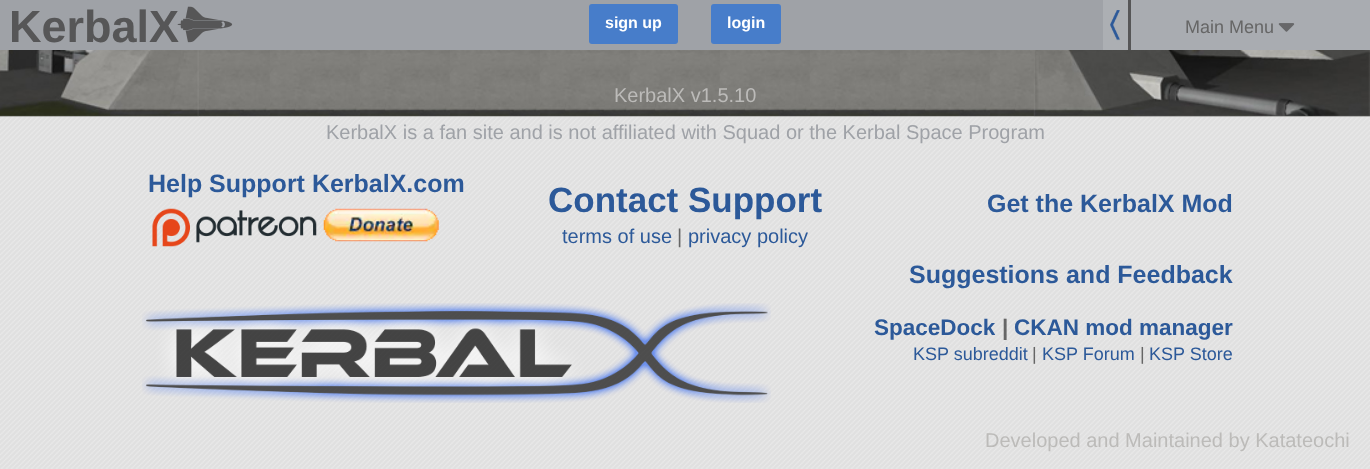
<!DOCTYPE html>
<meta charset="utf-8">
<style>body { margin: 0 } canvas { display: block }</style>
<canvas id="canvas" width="1370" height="469"></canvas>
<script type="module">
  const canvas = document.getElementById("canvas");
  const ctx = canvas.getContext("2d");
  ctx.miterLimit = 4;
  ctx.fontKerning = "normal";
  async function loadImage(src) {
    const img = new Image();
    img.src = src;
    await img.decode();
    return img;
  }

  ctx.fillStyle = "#ffffff";
  ctx.fillRect(0, 0, 1370, 469);
  ctx.drawImage(await loadImage("img1.png"), 0, 116, 1370, 353);
  ctx.fillStyle = "#9fa2a7";
  ctx.fillRect(0, 0, 1103, 50);
  ctx.font = "bold 45px Liberation Sans";
  ctx.fillStyle = "#565657";
  ctx.fillText("KerbalX", 9, 42);
  ctx.drawImage(await loadImage("img2.png"), 177, 6, 56, 37);
  ctx.fillStyle = "#477dca";
  ctx.beginPath();
  ctx.roundRect(589, 4, 89, 40, 3);
  ctx.fill();
  ctx.font = "bold 16px Liberation Sans";
  ctx.fillStyle = "#ffffff";
  ctx.fillText("sign up", 605, 28);
  ctx.fillStyle = "#477dca";
  ctx.beginPath();
  ctx.roundRect(711, 4, 70, 40, 3);
  ctx.fill();
  ctx.fillStyle = "#ffffff";
  ctx.fillText("login", 727, 28);
  ctx.fillStyle = "#acafb3";
  ctx.fillRect(1103, 0, 25, 50);
  ctx.fillStyle = "#565657";
  ctx.fillRect(1128, 0, 3, 50);
  ctx.drawImage(await loadImage("img3.png"), 1110, 10, 10, 31);
  ctx.fillStyle = "#a9acb1";
  ctx.fillRect(1131, 0, 239, 50);
  ctx.font = "18px Liberation Sans";
  ctx.fillStyle = "#666666";
  ctx.fillText("Main Menu", 1185, 33);
  ctx.drawImage(await loadImage("img4.png"), 1278, 23, 17, 9);
  ctx.drawImage(await loadImage("img5.png"), 0, 50, 1370, 67);
  ctx.drawImage(await loadImage("img6.png"), 0, 50, 199, 67);
  ctx.font = "20px Liberation Sans";
  ctx.fillStyle = "#bcbbb9";
  ctx.fillText("KerbalX v1.5.10", 614, 102);
  ctx.drawImage(await loadImage("img7.png"), 1033, 50, 337, 67);
  ctx.fillStyle = "#9fa2a7";
  ctx.fillText("KerbalX is a fan site and is not affiliated with Squad or the Kerbal Space Program", 326, 139);
  ctx.font = "bold 25px Liberation Sans";
  ctx.fillStyle = "#2c5999";
  ctx.fillText("Help Support KerbalX.com", 148, 192);
  ctx.drawImage(await loadImage("img8.png"), 152, 208, 165, 39);
  ctx.drawImage(await loadImage("img9.png"), 323, 208, 116, 34);
  ctx.font = "bold 35px Liberation Sans";
  ctx.fillText("Contact Support", 548, 212);
  ctx.font = "20px Liberation Sans";
  ctx.fillText("terms of use", 562, 243);
  ctx.fillStyle = "#666666";
  ctx.fillText("|", 677, 243);
  ctx.fillStyle = "#2c5999";
  ctx.fillText("privacy policy", 688, 243);
  ctx.font = "bold 25px Liberation Sans";
  ctx.fillText("Get the KerbalX Mod", 987, 212);
  ctx.fillText("Suggestions and Feedback", 909, 283);
  ctx.drawImage(await loadImage("img10.png"), 142, 303, 629, 100);
  ctx.font = "bold 22.5px Liberation Sans";
  ctx.fillText("SpaceDock", 874, 335);
  ctx.fillStyle = "#666666";
  ctx.fillText("|", 1002, 335);
  ctx.fillStyle = "#2c5999";
  ctx.fillText("CKAN mod manager", 1014, 335);
  ctx.font = "18px Liberation Sans";
  ctx.fillText("KSP subreddit", 913, 360);
  ctx.fillStyle = "#666666";
  ctx.fillText("|", 1032, 360);
  ctx.fillStyle = "#2c5999";
  ctx.fillText("KSP Forum", 1042, 360);
  ctx.fillStyle = "#666666";
  ctx.fillText("|", 1140, 360);
  ctx.fillStyle = "#2c5999";
  ctx.fillText("KSP Store", 1149, 360);
  ctx.font = "20px Liberation Sans";
  ctx.fillStyle = "#bcbbb9";
  ctx.fillText("Developed and Maintained by Katateochi", 985, 447);
</script>
